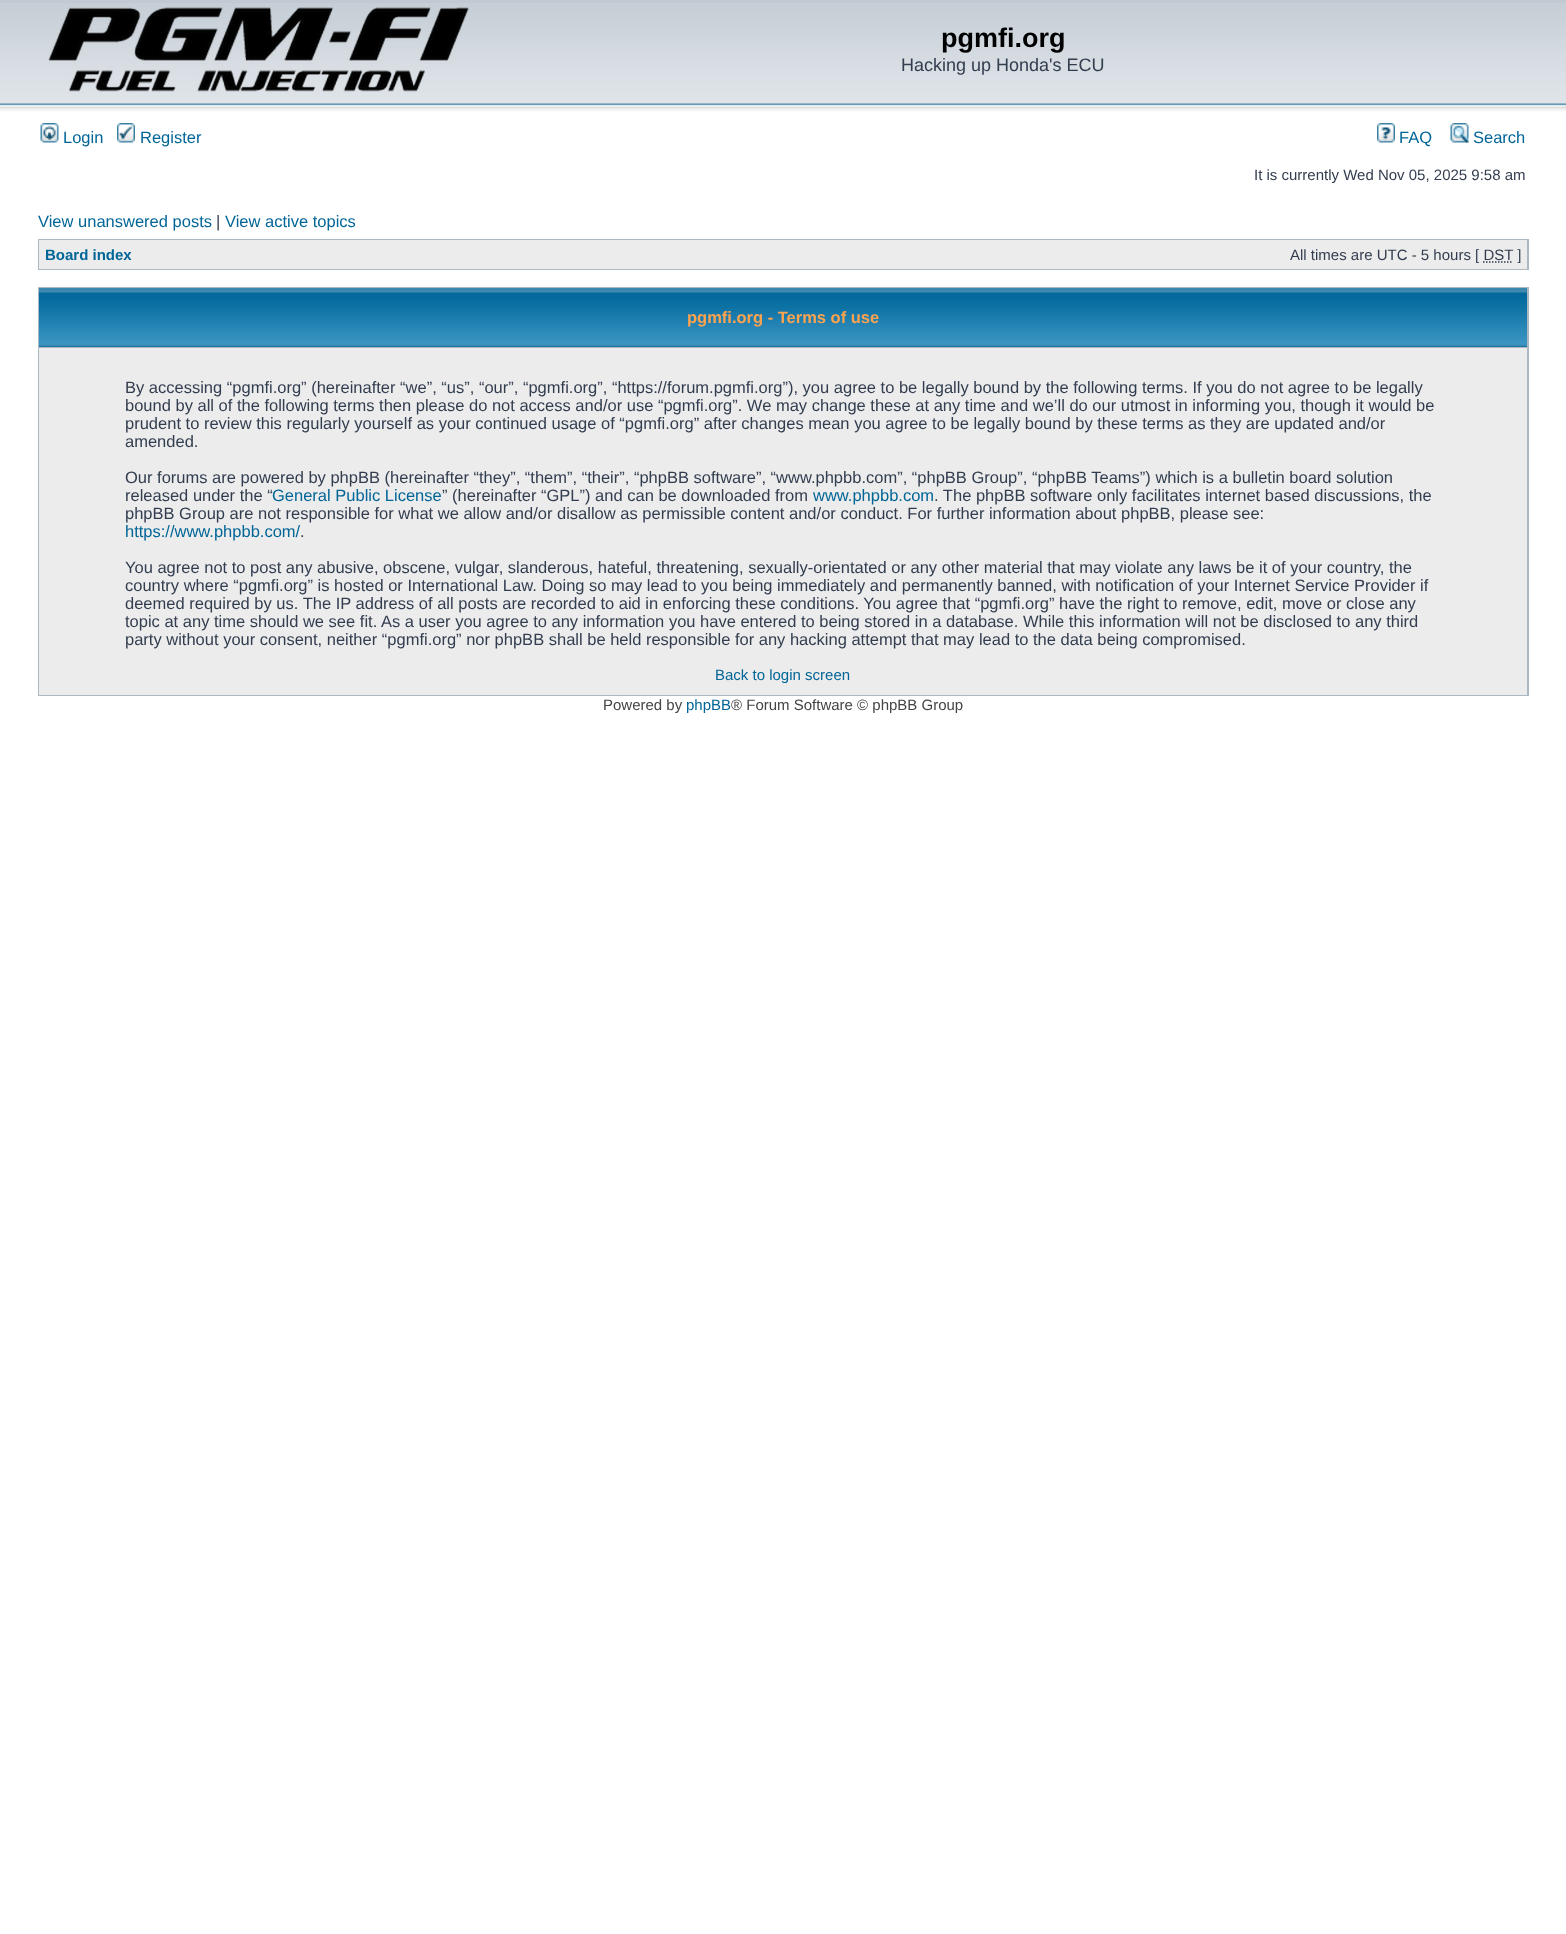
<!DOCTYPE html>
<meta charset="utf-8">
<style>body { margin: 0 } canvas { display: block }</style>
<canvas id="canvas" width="1566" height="1934"></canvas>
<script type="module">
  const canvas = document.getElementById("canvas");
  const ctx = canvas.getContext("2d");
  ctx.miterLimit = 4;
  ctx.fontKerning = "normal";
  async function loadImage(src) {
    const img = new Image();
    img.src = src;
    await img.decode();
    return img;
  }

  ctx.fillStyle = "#ffffff";
  ctx.fillRect(0, 0, 1566, 1934);
  ctx.fillStyle = "#c1cad2";
  ctx.fillRect(0, 0, 1566, 3);
  ctx.drawImage(await loadImage("img1.png"), 0, 3, 1566, 117);
  ctx.drawImage(await loadImage("img2.png"), 48, 7, 421, 85);
  ctx.font = "bold 27px Liberation Sans";
  ctx.fillStyle = "#000000";
  ctx.fillText("pgmfi.org", 941, 47);
  ctx.font = "18px Liberation Sans";
  ctx.fillStyle = "#323d4f";
  ctx.fillText("Hacking up Honda's ECU", 901, 71);
  ctx.drawImage(await loadImage("img3.png"), 40, 123, 19, 20);
  ctx.font = "16.5px Liberation Sans";
  ctx.fillStyle = "#006597";
  ctx.fillText("Login", 63, 143);
  ctx.drawImage(await loadImage("img4.png"), 117, 123, 18, 20);
  ctx.fillText("Register", 140, 143);
  ctx.drawImage(await loadImage("img5.png"), 1377, 123, 18, 20);
  ctx.fillText("FAQ", 1399, 143);
  ctx.drawImage(await loadImage("img6.png"), 1450, 123, 19, 20);
  ctx.fillText("Search", 1473, 143);
  ctx.font = "15px Liberation Sans";
  ctx.fillStyle = "#323d4f";
  ctx.fillText("It is currently Wed Nov 05, 2025 9:58 am", 1254, 180);
  ctx.font = "16.5px Liberation Sans";
  ctx.fillStyle = "#006597";
  ctx.fillText("View unanswered posts", 38, 227);
  ctx.fillStyle = "#323d4f";
  ctx.fillText("|", 216, 227);
  ctx.fillStyle = "#006597";
  ctx.fillText("View active topics", 225, 227);
  ctx.fillStyle = "#a9b8c2";
  ctx.fillRect(38, 239, 1491, 31);
  ctx.fillStyle = "#ececec";
  ctx.fillRect(39, 240, 1488, 29);
  ctx.font = "bold 15px Liberation Sans";
  ctx.fillStyle = "#006597";
  ctx.fillText("Board index", 45, 260);
  ctx.font = "15px Liberation Sans";
  ctx.fillStyle = "#323d4f";
  ctx.fillText("All times are UTC - 5 hours [ DST ]", 1290, 260);
  ctx.beginPath();
  ctx.moveTo(1483, 262);
  ctx.lineTo(1512.5, 262);
  ctx.strokeStyle = "#323d4f";
  ctx.lineWidth = 1.5;
  ctx.setLineDash([1.5, 1.5]);
  ctx.stroke();
  ctx.fillStyle = "#a9b8c2";
  ctx.fillRect(38, 287, 1491, 409);
  ctx.fillStyle = "#006699";
  ctx.fillRect(39, 346, 1488, 1);
  ctx.drawImage(await loadImage("img7.png"), 39, 288, 1488, 59);
  ctx.font = "bold 16.5px Liberation Sans";
  ctx.fillStyle = "#ffa34f";
  ctx.fillText("pgmfi.org - Terms of use", 687, 323);
  ctx.fillStyle = "#ececec";
  ctx.fillRect(39, 348, 1488, 347);
  ctx.font = "16.5px Liberation Sans";
  ctx.fillStyle = "#323d4f";
  ctx.fillText("By accessing “pgmfi.org” (hereinafter “we”, “us”, “our”, “pgmfi.org”, “https://forum.pgmfi.org”), you agree to be legally bound by the following terms. If you do not agree to be legally", 125, 393);
  ctx.fillText("bound by all of the following terms then please do not access and/or use “pgmfi.org”. We may change these at any time and we’ll do our utmost in informing you, though it would be", 125, 411);
  ctx.fillText("prudent to review this regularly yourself as your continued usage of “pgmfi.org” after changes mean you agree to be legally bound by these terms as they are updated and/or", 125, 429);
  ctx.fillText("amended.", 125, 447);
  ctx.fillText("Our forums are powered by phpBB (hereinafter “they”, “them”, “their”, “phpBB software”, “www.phpbb.com”, “phpBB Group”, “phpBB Teams”) which is a bulletin board solution", 125, 483);
  ctx.fillText("released under the “", 125, 501);
  ctx.fillStyle = "#006597";
  ctx.fillText("General Public License", 272, 501);
  ctx.fillStyle = "#323d4f";
  ctx.fillText("” (hereinafter “GPL”) and can be downloaded from", 442, 501);
  ctx.fillStyle = "#006597";
  ctx.fillText("www.phpbb.com", 813, 501);
  ctx.fillStyle = "#323d4f";
  ctx.fillText(". The phpBB software only facilitates internet based discussions, the", 934, 501);
  ctx.fillText("phpBB Group are not responsible for what we allow and/or disallow as permissible content and/or conduct. For further information about phpBB, please see:", 125, 519);
  ctx.fillStyle = "#006597";
  ctx.fillText("https://www.phpbb.com/", 125, 537);
  ctx.fillStyle = "#323d4f";
  ctx.fillText(".", 300, 537);
  ctx.fillText("You agree not to post any abusive, obscene, vulgar, slanderous, hateful, threatening, sexually-orientated or any other material that may violate any laws be it of your country, the", 125, 573);
  ctx.fillText("country where “pgmfi.org” is hosted or International Law. Doing so may lead to you being immediately and permanently banned, with notification of your Internet Service Provider if", 125, 591);
  ctx.fillText("deemed required by us. The IP address of all posts are recorded to aid in enforcing these conditions. You agree that “pgmfi.org” have the right to remove, edit, move or close any", 125, 609);
  ctx.fillText("topic at any time should we see fit. As a user you agree to any information you have entered to being stored in a database. While this information will not be disclosed to any third", 125, 627);
  ctx.fillText("party without your consent, neither “pgmfi.org” nor phpBB shall be held responsible for any hacking attempt that may lead to the data being compromised.", 125, 645);
  ctx.font = "15px Liberation Sans";
  ctx.fillStyle = "#006597";
  ctx.fillText("Back to login screen", 715, 680);
  ctx.fillStyle = "#444444";
  ctx.fillText("Powered by", 603, 710);
  ctx.fillStyle = "#006597";
  ctx.fillText("phpBB", 686, 710);
  ctx.fillStyle = "#444444";
  ctx.fillText("® Forum Software © phpBB Group", 731, 710);
</script>
